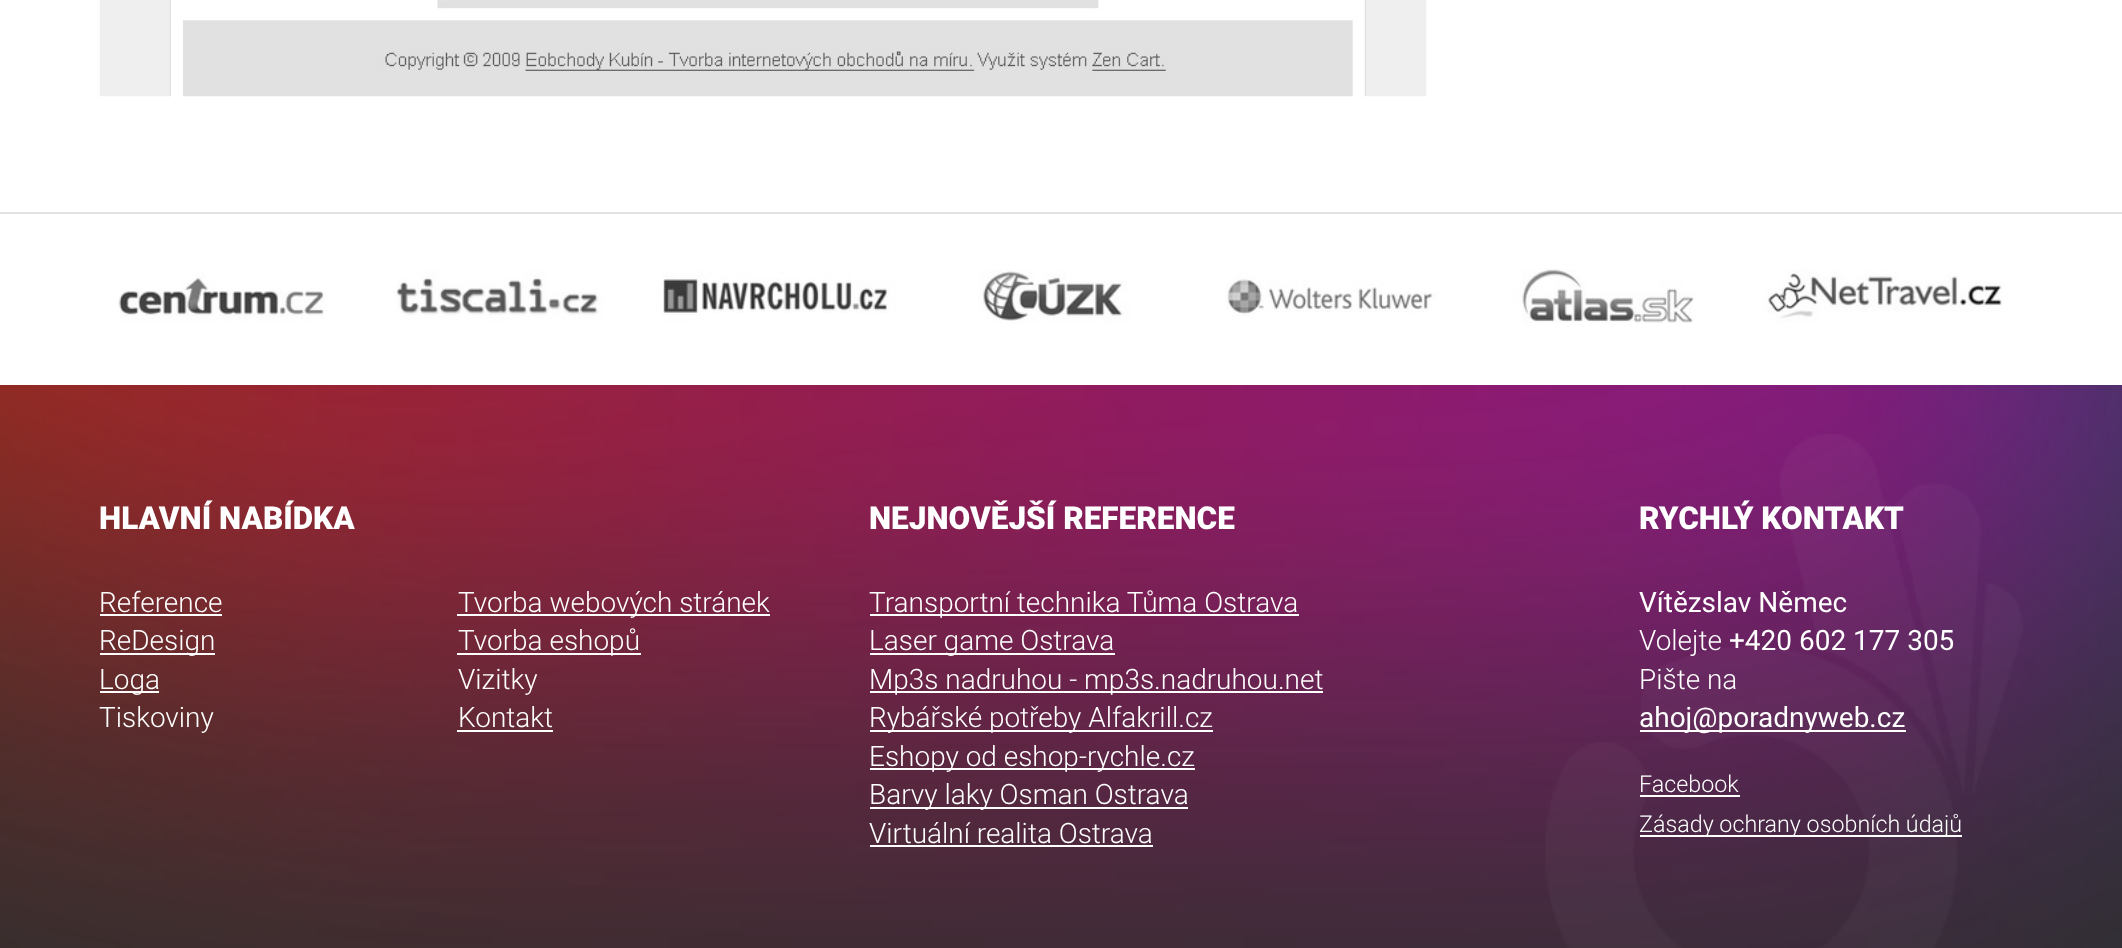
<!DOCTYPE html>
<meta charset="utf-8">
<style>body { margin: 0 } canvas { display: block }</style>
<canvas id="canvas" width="2122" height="948"></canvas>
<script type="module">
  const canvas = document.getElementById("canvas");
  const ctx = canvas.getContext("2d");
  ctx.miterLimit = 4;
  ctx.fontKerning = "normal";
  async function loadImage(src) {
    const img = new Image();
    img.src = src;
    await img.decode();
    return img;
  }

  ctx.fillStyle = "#ffffff";
  ctx.fillRect(0, 0, 2122, 948);
  ctx.drawImage(await loadImage("img1.png"), 99, 0, 1328, 97);
  ctx.fillStyle = "#e1e1e1";
  ctx.fillRect(0, 212, 2122, 2);
  ctx.drawImage(await loadImage("img2.png"), 118, 269, 1884, 54);
  ctx.fillStyle = "#2f2f2f";
  ctx.fillRect(0, 385, 2122, 563);
  ctx.drawImage(await loadImage("img3.png"), 0, 385, 2122, 563);
  ctx.drawImage(await loadImage("img4.png"), 1545, 434, 478, 514);
  ctx.font = "900 31.5px Roboto";
  ctx.fillStyle = "#ffffff";
  ctx.fillText("HLAVNÍ NABÍDKA", 99, 529);
  ctx.font = "300 28px Roboto";
  ctx.fillText("Reference", 99, 612);
  ctx.fillRect(100, 614, 122, 2);
  ctx.fillRect(457, 614, 313, 2);
  ctx.fillText("Tvorba webových stránek", 458, 612);
  ctx.fillRect(100, 653, 115, 2);
  ctx.fillText("ReDesign", 99, 650);
  ctx.fillRect(457, 653, 184, 2);
  ctx.fillText("Tvorba eshopů", 458, 650);
  ctx.fillRect(100, 691, 59, 2);
  ctx.fillText("Loga", 99, 689);
  ctx.fillText("Vizitky", 458, 689);
  ctx.fillText("Tiskoviny", 99, 727);
  ctx.fillText("Kontakt", 458, 727);
  ctx.fillRect(457, 730, 96, 2);
  ctx.font = "900 31.5px Roboto";
  ctx.fillText("NEJNOVĚJŠÍ REFERENCE", 869, 529);
  ctx.fillRect(870, 614, 429, 2);
  ctx.font = "300 28px Roboto";
  ctx.fillText("Transportní technika Tůma Ostrava", 869, 612);
  ctx.fillRect(870, 653, 245, 2);
  ctx.fillText("Laser game Ostrava", 869, 650);
  ctx.fillRect(870, 691, 453, 2);
  ctx.fillText("Mp3s nadruhou - mp3s.nadruhou.net", 869, 689);
  ctx.fillRect(870, 730, 343, 2);
  ctx.fillText("Rybářské potřeby Alfakrill.cz", 869, 727);
  ctx.fillRect(870, 768, 325, 2);
  ctx.fillText("Eshopy od eshop-rychle.cz", 869, 766);
  ctx.fillRect(870, 807, 318, 2);
  ctx.fillText("Barvy laky Osman Ostrava", 869, 804);
  ctx.fillText("Virtuální realita Ostrava", 869, 843);
  ctx.fillRect(870, 845, 283, 2);
  ctx.font = "900 31.5px Roboto";
  ctx.fillText("RYCHLÝ KONTAKT", 1639, 529);
  ctx.font = "28px Roboto";
  ctx.fillText("Vítězslav Němec", 1639, 612);
  ctx.font = "300 28px Roboto";
  ctx.fillText("Volejte", 1639, 650);
  ctx.font = "28px Roboto";
  ctx.fillText("+420 602 177 305", 1729, 650);
  ctx.font = "300 28px Roboto";
  ctx.fillText("Pište na", 1639, 689);
  ctx.fillRect(1640, 730, 266, 2);
  ctx.font = "28px Roboto";
  ctx.fillText("ahoj@poradnyweb.cz", 1639, 727);
  ctx.font = "300 23.3px Roboto";
  ctx.fillText("Facebook", 1639, 792);
  ctx.fillRect(1640, 795, 100, 2);
  ctx.fillRect(1640, 835, 322, 2);
  ctx.fillText("Zásady ochrany osobních údajů", 1639, 832);
</script>
